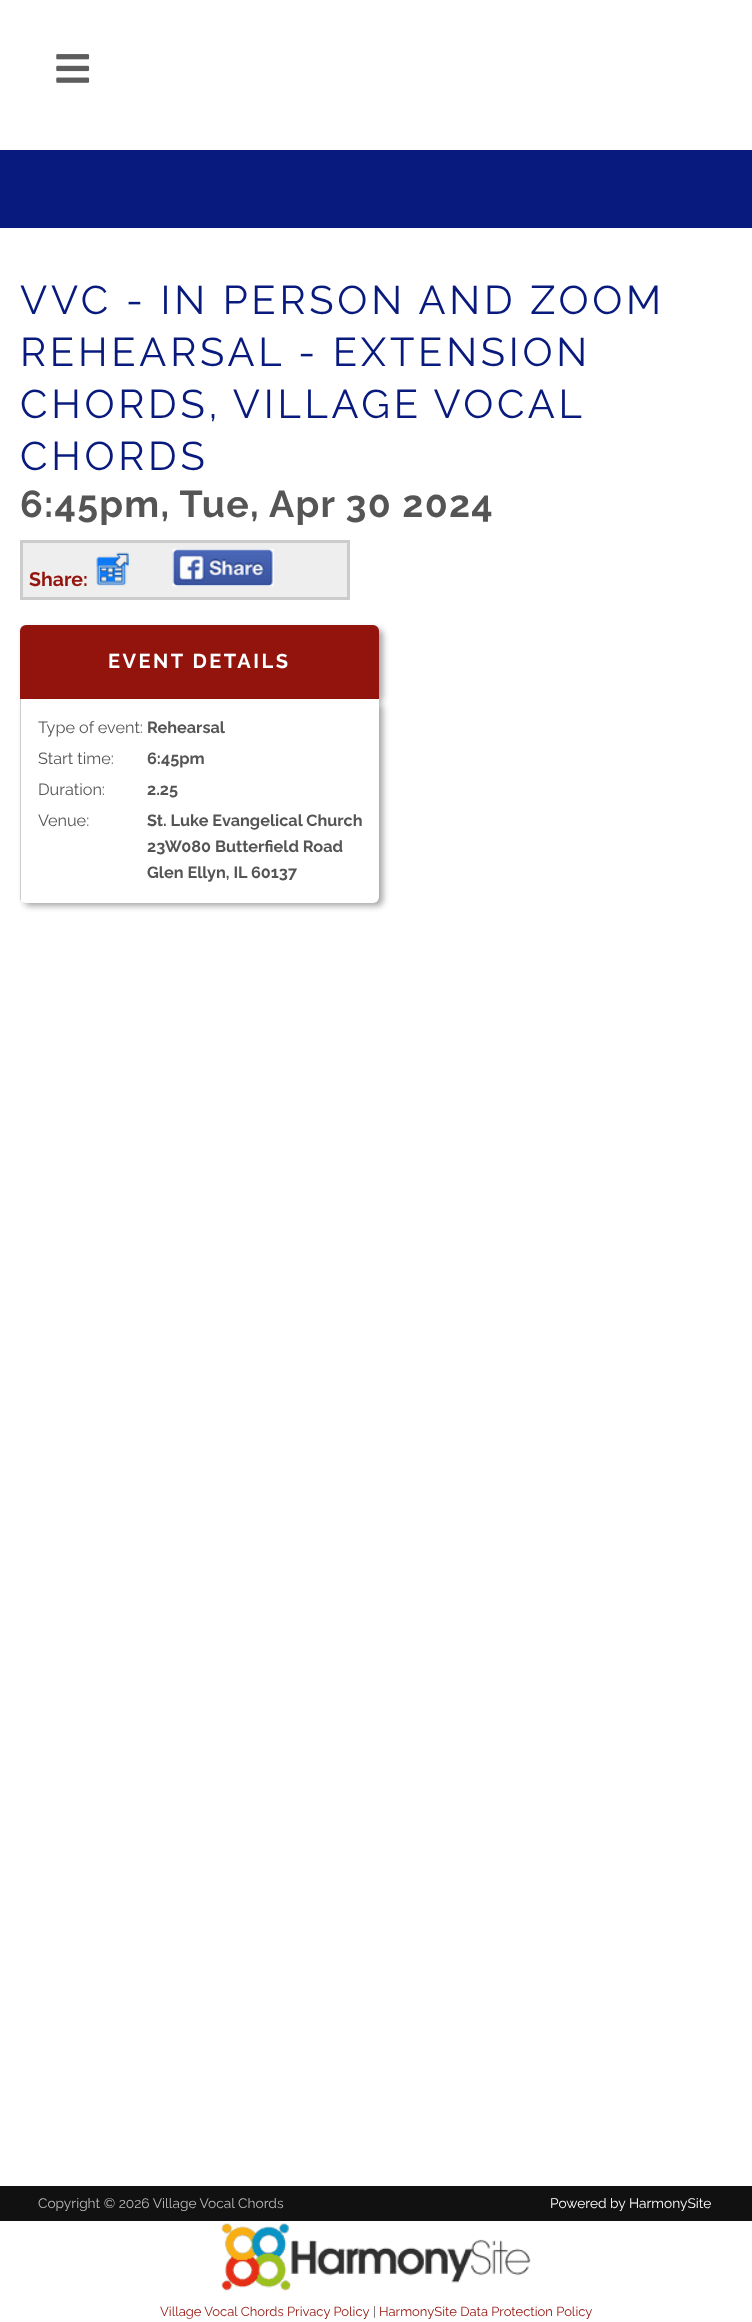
<!DOCTYPE html>
<meta charset="utf-8">
<style>body { margin: 0 } canvas { display: block }</style>
<canvas id="canvas" width="752" height="2322"></canvas>
<script type="module">
  const canvas = document.getElementById("canvas");
  const ctx = canvas.getContext("2d");
  ctx.miterLimit = 4;
  ctx.fontKerning = "normal";
  async function loadImage(src) {
    const img = new Image();
    img.src = src;
    await img.decode();
    return img;
  }

  ctx.fillStyle = "#ffffff";
  ctx.fillRect(0, 0, 752, 2322);
  ctx.drawImage(await loadImage("img1.png"), 56, 54, 34, 29);
  ctx.fillStyle = "#081a7d";
  ctx.fillRect(0, 150, 752, 78);
  ctx.letterSpacing = "3.75px";
  ctx.font = "40px Raleway";
  ctx.fillText("VVC - IN PERSON AND ZOOM", 20, 314);
  ctx.fillText("REHEARSAL - EXTENSION", 20, 366);
  ctx.wordSpacing = "-1px";
  ctx.fillText("CHORDS, VILLAGE VOCAL", 20, 418);
  ctx.wordSpacing = "0px";
  ctx.fillText("CHORDS", 20, 470);
  ctx.letterSpacing = "1.25px";
  ctx.font = "bold 37.5px Raleway";
  ctx.fillStyle = "#555555";
  ctx.fillText("6:45pm, Tue, Apr 30 2024", 20, 517);
  ctx.fillStyle = "#eeeeee";
  ctx.beginPath();
  ctx.rect(21.5, 541.5, 327, 57);
  ctx.fill();
  ctx.strokeStyle = "#cccccc";
  ctx.lineWidth = 3;
  ctx.stroke();
  ctx.letterSpacing = "0px";
  ctx.font = "bold 19.5px Raleway";
  ctx.fillStyle = "#93140d";
  ctx.fillText("Share:", 29, 586);
  ctx.drawImage(await loadImage("img2.png"), 96, 552, 33, 34);
  ctx.drawImage(await loadImage("img3.png"), 172, 548, 102, 39);
  ctx.fillStyle = "rgba(0, 0, 0, 0.35)";
  ctx.filter = "blur(3px)";
  ctx.beginPath();
  ctx.roundRect(24, 629, 359, 74, 6);
  ctx.fill();
  ctx.filter = "none";
  ctx.fillStyle = "#93140d";
  ctx.beginPath();
  ctx.roundRect(20, 625, 359, 74, [6, 6, 0, 0]);
  ctx.fill();
  ctx.letterSpacing = "2.5px";
  ctx.font = "bold 20px Raleway";
  ctx.fillStyle = "#ffffff";
  ctx.fillText("EVENT DETAILS", 108, 668);
  ctx.fillStyle = "rgba(0, 0, 0, 0.35)";
  ctx.filter = "blur(3px)";
  ctx.beginPath();
  ctx.roundRect(24, 703, 359, 203, 6);
  ctx.fill();
  ctx.filter = "none";
  ctx.fillStyle = "#ffffff";
  ctx.beginPath();
  ctx.roundRect(20, 699, 359, 204, [0, 0, 6, 6]);
  ctx.fill();
  ctx.fillStyle = "#cccccc";
  ctx.fillRect(20, 699, 1, 201);
  ctx.letterSpacing = "0px";
  ctx.font = "16.25px Raleway";
  ctx.fillStyle = "#555555";
  ctx.fillText("Type of event:", 38, 733);
  ctx.font = "bold 16.25px Raleway";
  ctx.fillText("Rehearsal", 147, 733);
  ctx.font = "16.25px Raleway";
  ctx.fillText("Start time:", 38, 764);
  ctx.font = "bold 16.25px Raleway";
  ctx.fillText("6:45pm", 147, 764);
  ctx.font = "16.25px Raleway";
  ctx.fillText("Duration:", 38, 795);
  ctx.font = "bold 16.25px Raleway";
  ctx.fillText("2.25", 147, 795);
  ctx.font = "16.25px Raleway";
  ctx.fillText("Venue:", 38, 826);
  ctx.font = "bold 16.25px Raleway";
  ctx.fillText("St. Luke Evangelical Church", 147, 826);
  ctx.fillText("23W080 Butterfield Road", 147, 852);
  ctx.fillText("Glen Ellyn, IL 60137", 147, 878);
  ctx.fillStyle = "#111111";
  ctx.fillRect(0, 2186, 752, 35);
  ctx.font = "13.75px Raleway";
  ctx.fillStyle = "#bbbbbb";
  ctx.fillText("Copyright © 2026 Village Vocal Chords", 38, 2208);
  ctx.fillStyle = "#ffffff";
  ctx.fillText("Powered by HarmonySite", 550, 2208);
  ctx.drawImage(await loadImage("img4.png"), 221, 2223, 310, 68);
  ctx.font = "13px Raleway";
  ctx.fillStyle = "#93140d";
  ctx.fillText("Village Vocal Chords Privacy Policy", 160, 2316);
  ctx.fillStyle = "#555555";
  ctx.fillText("|", 373, 2316);
  ctx.fillStyle = "#93140d";
  ctx.fillText("HarmonySite Data Protection Policy", 379, 2316);
</script>
